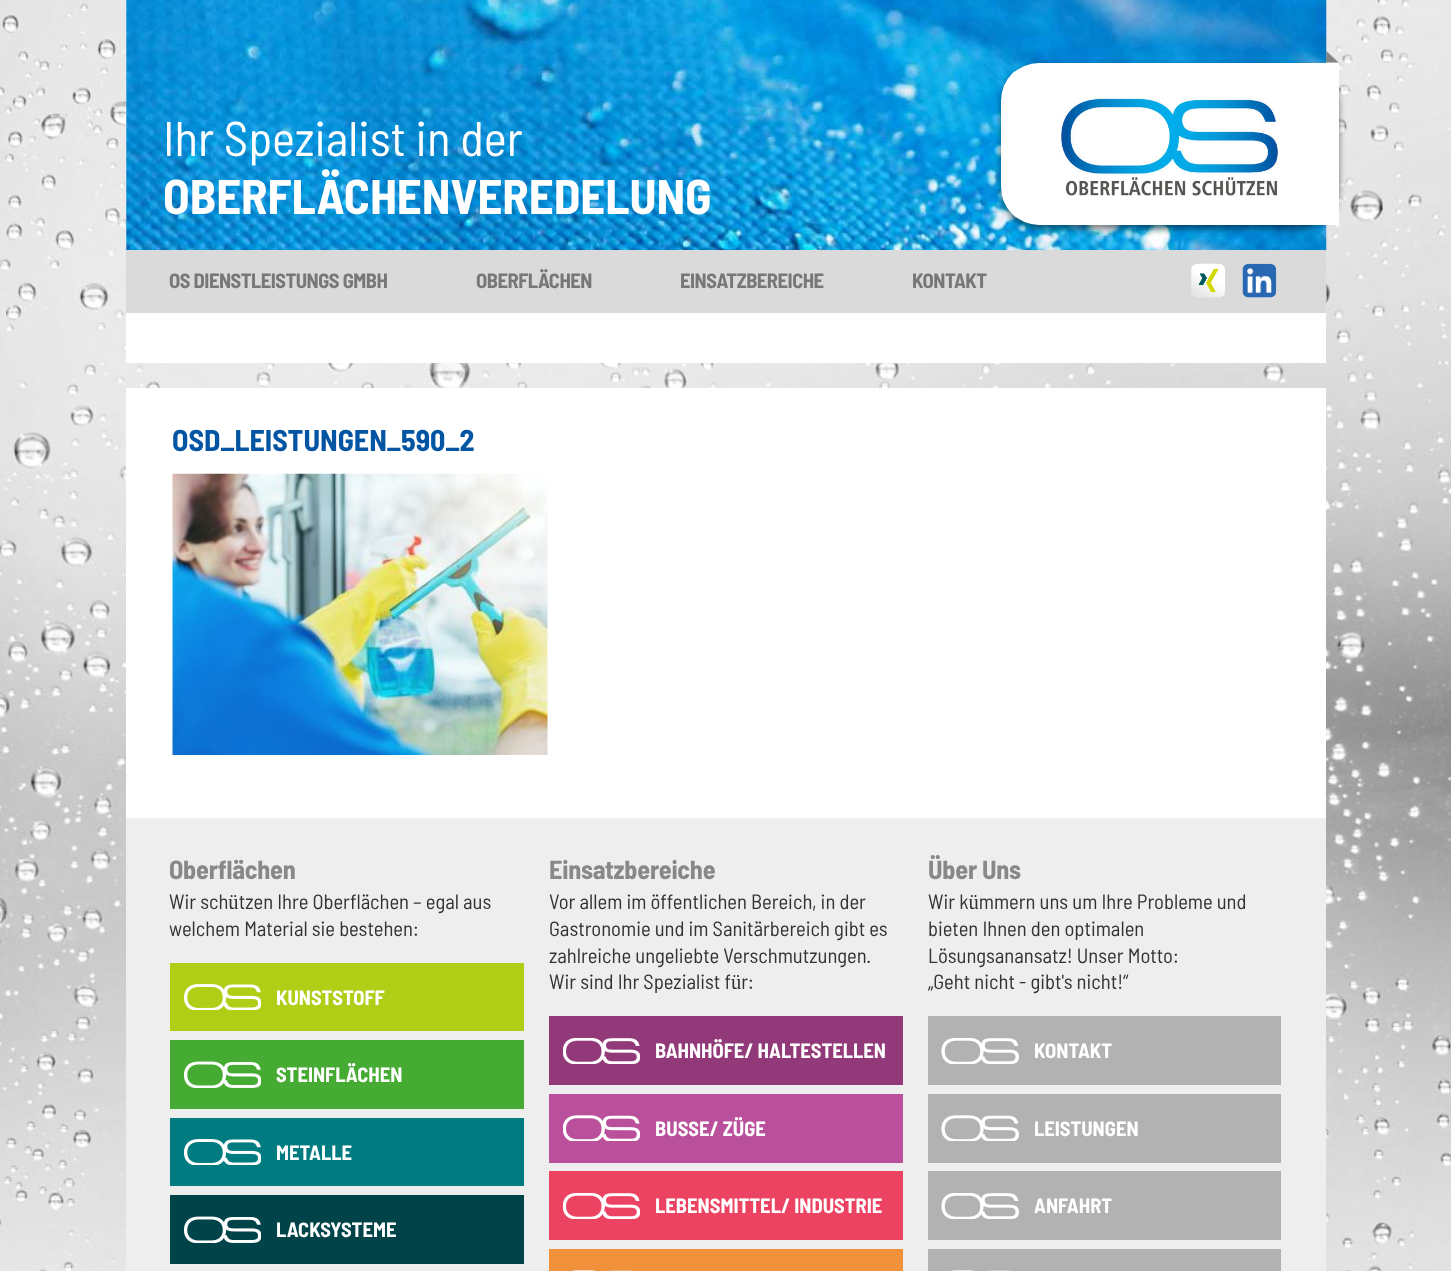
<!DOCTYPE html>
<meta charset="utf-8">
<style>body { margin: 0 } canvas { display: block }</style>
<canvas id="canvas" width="1451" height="1271"></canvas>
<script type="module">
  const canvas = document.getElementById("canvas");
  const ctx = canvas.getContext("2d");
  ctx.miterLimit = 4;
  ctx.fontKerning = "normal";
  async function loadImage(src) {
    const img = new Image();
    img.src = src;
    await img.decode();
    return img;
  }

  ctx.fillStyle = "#ffffff";
  ctx.fillRect(0, 0, 1451, 1271);
  ctx.drawImage(await loadImage("img1.png"), 0, 0, 1451, 1271);
  ctx.fillRect(126, 0, 1200, 363);
  ctx.drawImage(await loadImage("img2.png"), 126, 0, 1201, 250);
  ctx.font = "48.75px Barlow Semi Condensed";
  ctx.fillText("Ihr Spezialist in der", 163, 156);
  ctx.font = "bold 48.75px Barlow Semi Condensed";
  ctx.fillText("OBERFLÄCHENVEREDELUNG", 163, 214);
  ctx.fillStyle = "rgba(0, 0, 0, 0.5)";
  ctx.filter = "blur(3px)";
  ctx.beginPath();
  ctx.roundRect(1001, 66, 338, 163, 38);
  ctx.fill();
  ctx.filter = "none";
  ctx.fillStyle = "#ffffff";
  ctx.beginPath();
  ctx.roundRect(1001, 63, 338, 162, [38, 0, 0, 38]);
  ctx.fill();
  ctx.drawImage(await loadImage("img3.png"), 1002, 71, 278, 147);
  ctx.drawImage(await loadImage("img4.png"), 1326, 51, 13, 12);
  ctx.fillStyle = "#dadada";
  ctx.fillRect(126, 250, 1200, 63);
  ctx.letterSpacing = "-0.5px";
  ctx.font = "bold 20.6px Barlow Semi Condensed";
  ctx.fillStyle = "#777777";
  ctx.fillText("OS DIENSTLEISTUNGS GMBH", 169, 288);
  ctx.fillText("OBERFLÄCHEN", 476, 288);
  ctx.fillText("EINSATZBEREICHE", 680, 288);
  ctx.fillText("KONTAKT", 912, 288);
  ctx.drawImage(await loadImage("img5.png"), 1191, 263, 34, 35);
  ctx.drawImage(await loadImage("img6.png"), 1242, 263, 35, 35);
  ctx.fillStyle = "#ffffff";
  ctx.fillRect(126, 388, 1200, 430);
  ctx.letterSpacing = "0px";
  ctx.font = "bold 30px Barlow Semi Condensed";
  ctx.fillStyle = "#0155a3";
  ctx.fillText("OSD_LEISTUNGEN_590_2", 172, 451);
  ctx.drawImage(await loadImage("img7.png"), 172, 473, 376, 282);
  ctx.fillStyle = "#eeeeee";
  ctx.fillRect(126, 818, 1200, 453);
  ctx.letterSpacing = "-0.25px";
  ctx.font = "bold 26.25px Barlow Semi Condensed";
  ctx.fillStyle = "#888888";
  ctx.fillText("Oberflächen", 169, 879);
  ctx.letterSpacing = "0px";
  ctx.font = "20.6px Barlow Semi Condensed";
  ctx.fillStyle = "#333333";
  ctx.fillText("Wir schützen Ihre Oberflächen – egal aus", 169, 909);
  ctx.fillText("welchem Material sie bestehen:", 169, 936);
  ctx.fillStyle = "#b0ce16";
  ctx.fillRect(170, 963, 354, 68);
  ctx.drawImage(await loadImage("img8.png"), 184, 984, 77, 26);
  ctx.font = "bold 20.6px Barlow Semi Condensed";
  ctx.fillStyle = "#ffffff";
  ctx.fillText("KUNSTSTOFF", 276, 1005);
  ctx.fillStyle = "#46ab33";
  ctx.fillRect(170, 1040, 354, 69);
  ctx.drawImage(await loadImage("img9.png"), 184, 1061, 77, 27);
  ctx.fillStyle = "#ffffff";
  ctx.fillText("STEINFLÄCHEN", 276, 1082);
  ctx.fillStyle = "#007b80";
  ctx.fillRect(170, 1118, 354, 68);
  ctx.drawImage(await loadImage("img10.png"), 184, 1139, 77, 26);
  ctx.fillStyle = "#ffffff";
  ctx.fillText("METALLE", 276, 1160);
  ctx.fillStyle = "#004349";
  ctx.fillRect(170, 1195, 354, 69);
  ctx.drawImage(await loadImage("img11.png"), 184, 1216, 77, 27);
  ctx.fillStyle = "#ffffff";
  ctx.fillText("LACKSYSTEME", 276, 1237);
  ctx.letterSpacing = "-0.25px";
  ctx.font = "bold 26.25px Barlow Semi Condensed";
  ctx.fillStyle = "#888888";
  ctx.fillText("Einsatzbereiche", 549, 879);
  ctx.letterSpacing = "0px";
  ctx.font = "20.6px Barlow Semi Condensed";
  ctx.fillStyle = "#333333";
  ctx.fillText("Vor allem im öffentlichen Bereich, in der", 549, 909);
  ctx.fillText("Gastronomie und im Sanitärbereich gibt es", 549, 936);
  ctx.fillText("zahlreiche ungeliebte Verschmutzungen.", 549, 963);
  ctx.fillText("Wir sind Ihr Spezialist für:", 549, 989);
  ctx.fillStyle = "#923979";
  ctx.fillRect(549, 1016, 354, 69);
  ctx.drawImage(await loadImage("img12.png"), 563, 1038, 77, 26);
  ctx.font = "bold 20.6px Barlow Semi Condensed";
  ctx.fillStyle = "#ffffff";
  ctx.fillText("BAHNHÖFE/ HALTESTELLEN", 655, 1058);
  ctx.fillStyle = "#ba4f9b";
  ctx.fillRect(549, 1094, 354, 69);
  ctx.drawImage(await loadImage("img13.png"), 563, 1115, 77, 26);
  ctx.fillStyle = "#ffffff";
  ctx.fillText("BUSSE/ ZÜGE", 655, 1136);
  ctx.fillStyle = "#ed4362";
  ctx.fillRect(549, 1171, 354, 69);
  ctx.drawImage(await loadImage("img14.png"), 563, 1193, 77, 26);
  ctx.fillStyle = "#ffffff";
  ctx.fillText("LEBENSMITTEL/ INDUSTRIE", 655, 1213);
  ctx.fillStyle = "#f1913b";
  ctx.fillRect(549, 1249, 354, 22);
  ctx.drawImage(await loadImage("img15.png"), 572, 1270, 60, 1);
  ctx.letterSpacing = "-0.25px";
  ctx.font = "bold 26.25px Barlow Semi Condensed";
  ctx.fillStyle = "#888888";
  ctx.fillText("Über Uns", 928, 879);
  ctx.letterSpacing = "0px";
  ctx.font = "20.6px Barlow Semi Condensed";
  ctx.fillStyle = "#333333";
  ctx.fillText("Wir kümmern uns um Ihre Probleme und", 928, 909);
  ctx.fillText("bieten Ihnen den optimalen", 928, 936);
  ctx.fillText("Lösungsanansatz! Unser Motto:", 928, 963);
  ctx.fillText("„Geht nicht - gibt's nicht!“", 928, 989);
  ctx.fillStyle = "#b2b2b2";
  ctx.fillRect(928, 1016, 353, 69);
  ctx.drawImage(await loadImage("img16.png"), 941, 1038, 78, 26);
  ctx.font = "bold 20.6px Barlow Semi Condensed";
  ctx.fillStyle = "#ffffff";
  ctx.fillText("KONTAKT", 1034, 1058);
  ctx.fillStyle = "#b2b2b2";
  ctx.fillRect(928, 1094, 353, 69);
  ctx.drawImage(await loadImage("img17.png"), 941, 1115, 78, 26);
  ctx.fillStyle = "#ffffff";
  ctx.fillText("LEISTUNGEN", 1034, 1136);
  ctx.fillStyle = "#b2b2b2";
  ctx.fillRect(928, 1171, 353, 69);
  ctx.drawImage(await loadImage("img16.png"), 941, 1193, 78, 26);
  ctx.fillStyle = "#ffffff";
  ctx.fillText("ANFAHRT", 1034, 1213);
  ctx.fillStyle = "#b2b2b2";
  ctx.fillRect(928, 1249, 353, 22);
  ctx.drawImage(await loadImage("img18.png"), 951, 1270, 60, 1);
</script>
